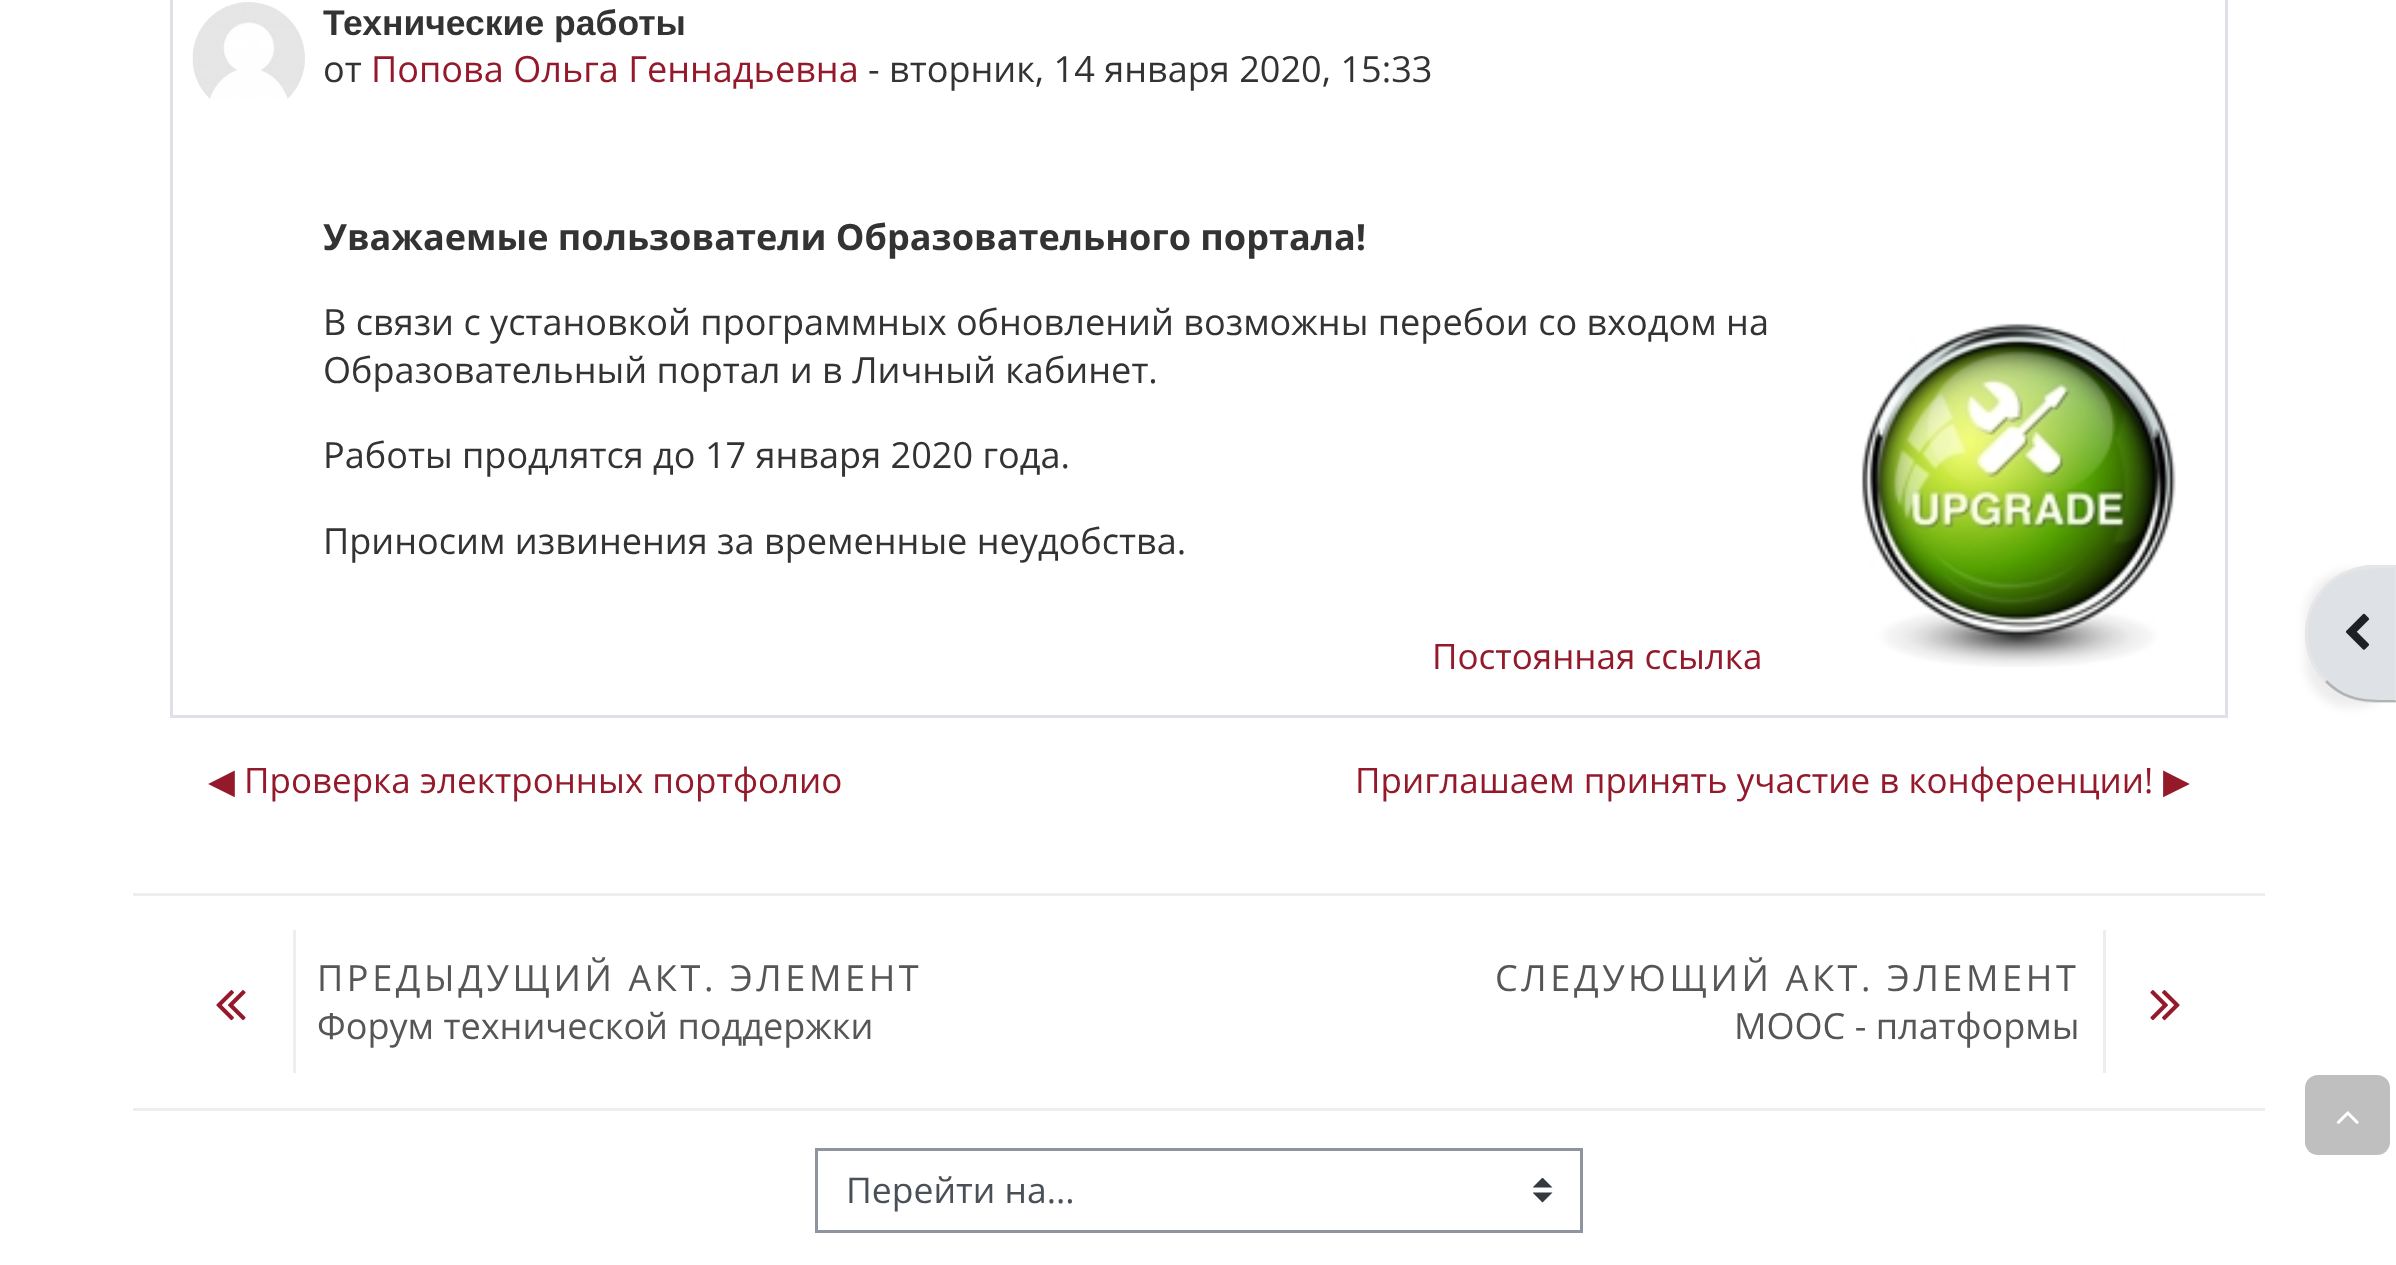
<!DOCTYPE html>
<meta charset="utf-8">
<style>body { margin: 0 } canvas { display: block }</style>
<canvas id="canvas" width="2396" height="1265"></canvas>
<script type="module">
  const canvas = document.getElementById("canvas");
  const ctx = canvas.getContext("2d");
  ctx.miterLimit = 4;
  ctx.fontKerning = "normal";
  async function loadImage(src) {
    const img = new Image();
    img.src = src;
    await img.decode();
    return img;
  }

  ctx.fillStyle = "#ffffff";
  ctx.fillRect(0, 0, 2396, 1265);
  ctx.strokeStyle = "#dee2e6";
  ctx.lineWidth = 3;
  ctx.strokeRect(171.5, -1.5, 2055, 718);
  ctx.drawImage(await loadImage("img1.png"), 192, 2, 113, 97);
  ctx.font = "bold 35.5px Liberation Sans";
  ctx.fillStyle = "#333333";
  ctx.fillText("Технические работы", 323, 35);
  ctx.font = "36.1px Open Sans";
  ctx.fillText("от", 323, 82);
  ctx.fillStyle = "#94192b";
  ctx.fillText("Попова Ольга Геннадьевна", 371, 82);
  ctx.fillStyle = "#333333";
  ctx.fillText("- вторник, 14 января 2020, 15:33", 868, 82);
  ctx.font = "bold 36.1px Open Sans";
  ctx.fillText("Уважаемые пользователи Образовательного портала!", 323, 250);
  ctx.font = "36.1px Open Sans";
  ctx.fillText("В связи с установкой программных обновлений возможны перебои со входом на", 323, 335);
  ctx.drawImage(await loadImage("img2.png"), 1861, 323, 315, 344);
  ctx.fillText("Образовательный портал и в Личный кабинет.", 323, 383);
  ctx.fillText("Работы продлятся до 17 января 2020 года.", 323, 468);
  ctx.fillText("Приносим извинения за временные неудобства.", 323, 554);
  ctx.font = "35px Open Sans";
  ctx.fillStyle = "#94192b";
  ctx.fillText("Постоянная ссылка", 1432, 669);
  ctx.font = "35px DejaVu Sans";
  ctx.fillText("◀︎", 208, 793);
  ctx.font = "35px Open Sans";
  ctx.fillText("Проверка электронных портфолио", 244, 793);
  ctx.fillText("Приглашаем принять участие в конференции!", 1355, 793);
  ctx.font = "35px DejaVu Sans";
  ctx.fillText("▶︎", 2163, 793);
  ctx.fillStyle = "#eeeeee";
  ctx.fillRect(133, 893, 2132, 3);
  ctx.fillRect(133, 1108, 2132, 3);
  ctx.fillRect(293, 930, 3, 143);
  ctx.drawImage(await loadImage("img3.png"), 216, 990, 30, 31);
  ctx.letterSpacing = "3.6px";
  ctx.font = "36.1px Open Sans";
  ctx.fillStyle = "#565656";
  ctx.fillText("ПРЕДЫДУЩИЙ АКТ. ЭЛЕМЕНТ", 317, 991);
  ctx.letterSpacing = "0px";
  ctx.fillText("Форум технической поддержки", 317, 1039);
  ctx.letterSpacing = "3.6px";
  ctx.fillText("СЛЕДУЮЩИЙ АКТ. ЭЛЕМЕНТ", 1495, 991);
  ctx.letterSpacing = "0px";
  ctx.fillText("MOOC - платформы", 1734, 1039);
  ctx.fillStyle = "#eeeeee";
  ctx.fillRect(2103, 930, 3, 143);
  ctx.drawImage(await loadImage("img4.png"), 2150, 990, 30, 31);
  ctx.save();
  ctx.beginPath();
  ctx.rect(1533, 1178, 20, 25);
  ctx.clip();
  ctx.fillStyle = "#343a40";
  ctx.beginPath();
  ctx.moveTo(1542.5, 1177.5);
  ctx.lineTo(1532.5, 1187.5);
  ctx.lineTo(1552.5, 1187.5);
  ctx.closePath();
  ctx.moveTo(1542.5, 1202.5);
  ctx.lineTo(1532.5, 1192.5);
  ctx.lineTo(1552.5, 1192.5);
  ctx.closePath();
  ctx.fill();
  ctx.restore();
  ctx.strokeStyle = "#8f959e";
  ctx.strokeRect(816.5, 1149.5, 765, 82);
  ctx.font = "35.5px Open Sans";
  ctx.fillStyle = "#495057";
  ctx.fillText("Перейти на...", 846, 1203);
  ctx.fillStyle = "rgba(0, 0, 0, 0.07)";
  ctx.filter = "blur(5px)";
  ctx.beginPath();
  ctx.roundRect(2305, 570, 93, 138, 69);
  ctx.fill();
  ctx.filter = "none";
  ctx.fillStyle = "#dee2e6";
  ctx.beginPath();
  ctx.moveTo(2374, 565);
  ctx.lineTo(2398, 565);
  ctx.lineTo(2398, 703);
  ctx.lineTo(2374, 703);
  ctx.bezierCurveTo(2336, 703, 2305, 672, 2305, 634);
  ctx.bezierCurveTo(2305, 596, 2336, 565, 2374, 565);
  ctx.closePath();
  ctx.fill();
  ctx.fillStyle = "#e6e6e6";
  ctx.beginPath();
  ctx.moveTo(2374, 565);
  ctx.bezierCurveTo(2355, 565, 2338, 573, 2325, 585);
  ctx.lineTo(2327, 587);
  ctx.bezierCurveTo(2348, 567, 2368, 568, 2394, 568);
  ctx.lineTo(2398, 565);
  ctx.closePath();
  ctx.fill();
  ctx.beginPath();
  ctx.moveTo(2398, 565);
  ctx.lineTo(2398, 702);
  ctx.lineTo(2395, 700);
  ctx.lineTo(2395, 568);
  ctx.lineTo(2394, 568);
  ctx.closePath();
  ctx.fill();
  ctx.fillStyle = "#b3b3b3";
  ctx.beginPath();
  ctx.moveTo(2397, 702);
  ctx.bezierCurveTo(2369, 702, 2347, 704, 2325, 682);
  ctx.lineTo(2327, 680);
  ctx.bezierCurveTo(2348, 701, 2368, 700, 2395, 700);
  ctx.closePath();
  ctx.fill();
  ctx.fillStyle = "#e6e6e6";
  ctx.beginPath();
  ctx.moveTo(2325, 682);
  ctx.bezierCurveTo(2298, 656, 2299, 612, 2325, 585);
  ctx.lineTo(2327, 587);
  ctx.bezierCurveTo(2302, 612, 2302, 655, 2327, 680);
  ctx.closePath();
  ctx.fill();
  ctx.drawImage(await loadImage("img5.png"), 2346, 613, 23, 37);
  ctx.fillStyle = "#bfbfbf";
  ctx.beginPath();
  ctx.roundRect(2305, 1075, 85, 80, 13);
  ctx.fill();
  ctx.drawImage(await loadImage("img6.png"), 2336, 1111, 23, 13);
</script>
